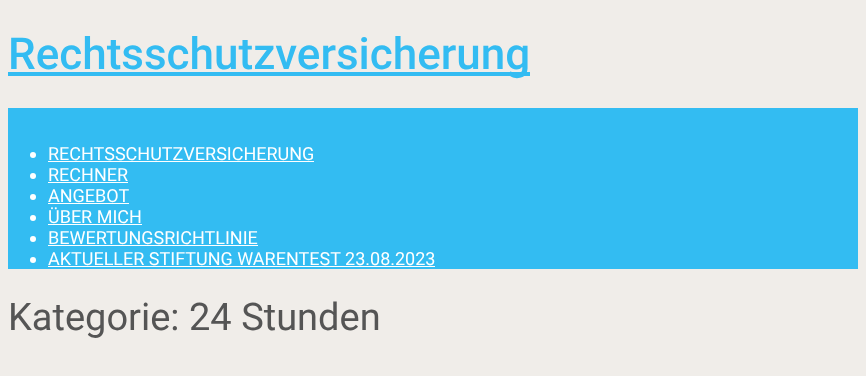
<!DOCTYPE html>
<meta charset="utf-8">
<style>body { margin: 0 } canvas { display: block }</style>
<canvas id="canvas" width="866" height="376"></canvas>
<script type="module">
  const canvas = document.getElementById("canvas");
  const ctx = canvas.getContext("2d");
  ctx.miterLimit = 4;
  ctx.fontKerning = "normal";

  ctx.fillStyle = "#f0ede9";
  ctx.fillRect(0, 0, 866, 376);
  ctx.fillStyle = "#33bcf2";
  ctx.fillRect(8, 72, 522, 4);
  ctx.font = "500 44px Roboto";
  ctx.fillText("Rechtsschutzversicherung", 8, 69);
  ctx.fillRect(8, 108, 850, 161);
  ctx.fillStyle = "#ffffff";
  ctx.beginPath();
  ctx.arc(33, 155, 3, 0, Math.PI * 2);
  ctx.fill();
  ctx.font = "18px Roboto";
  ctx.fillText("RECHTSSCHUTZVERSICHERUNG", 48, 160);
  ctx.fillRect(48, 161, 266, 1);
  ctx.beginPath();
  ctx.arc(33, 176, 3, 0, Math.PI * 2);
  ctx.fill();
  ctx.fillText("RECHNER", 48, 181);
  ctx.fillRect(48, 182, 80, 1);
  ctx.beginPath();
  ctx.arc(33, 197, 3, 0, Math.PI * 2);
  ctx.fill();
  ctx.fillText("ANGEBOT", 48, 202);
  ctx.fillRect(48, 203, 81, 1);
  ctx.beginPath();
  ctx.arc(33, 218, 3, 0, Math.PI * 2);
  ctx.fill();
  ctx.fillText("ÜBER MICH", 48, 223);
  ctx.fillRect(48, 224, 94, 1);
  ctx.beginPath();
  ctx.arc(33, 239, 3, 0, Math.PI * 2);
  ctx.fill();
  ctx.fillText("BEWERTUNGSRICHTLINIE", 48, 244);
  ctx.fillRect(48, 245, 210, 1);
  ctx.beginPath();
  ctx.arc(33, 260, 3, 0, Math.PI * 2);
  ctx.fill();
  ctx.fillText("AKTUELLER STIFTUNG WARENTEST 23.08.2023", 48, 265);
  ctx.fillRect(48, 266, 387, 1);
  ctx.font = "38px Roboto";
  ctx.fillStyle = "#555555";
  ctx.fillText("Kategorie: 24 Stunden", 8, 330);
</script>
